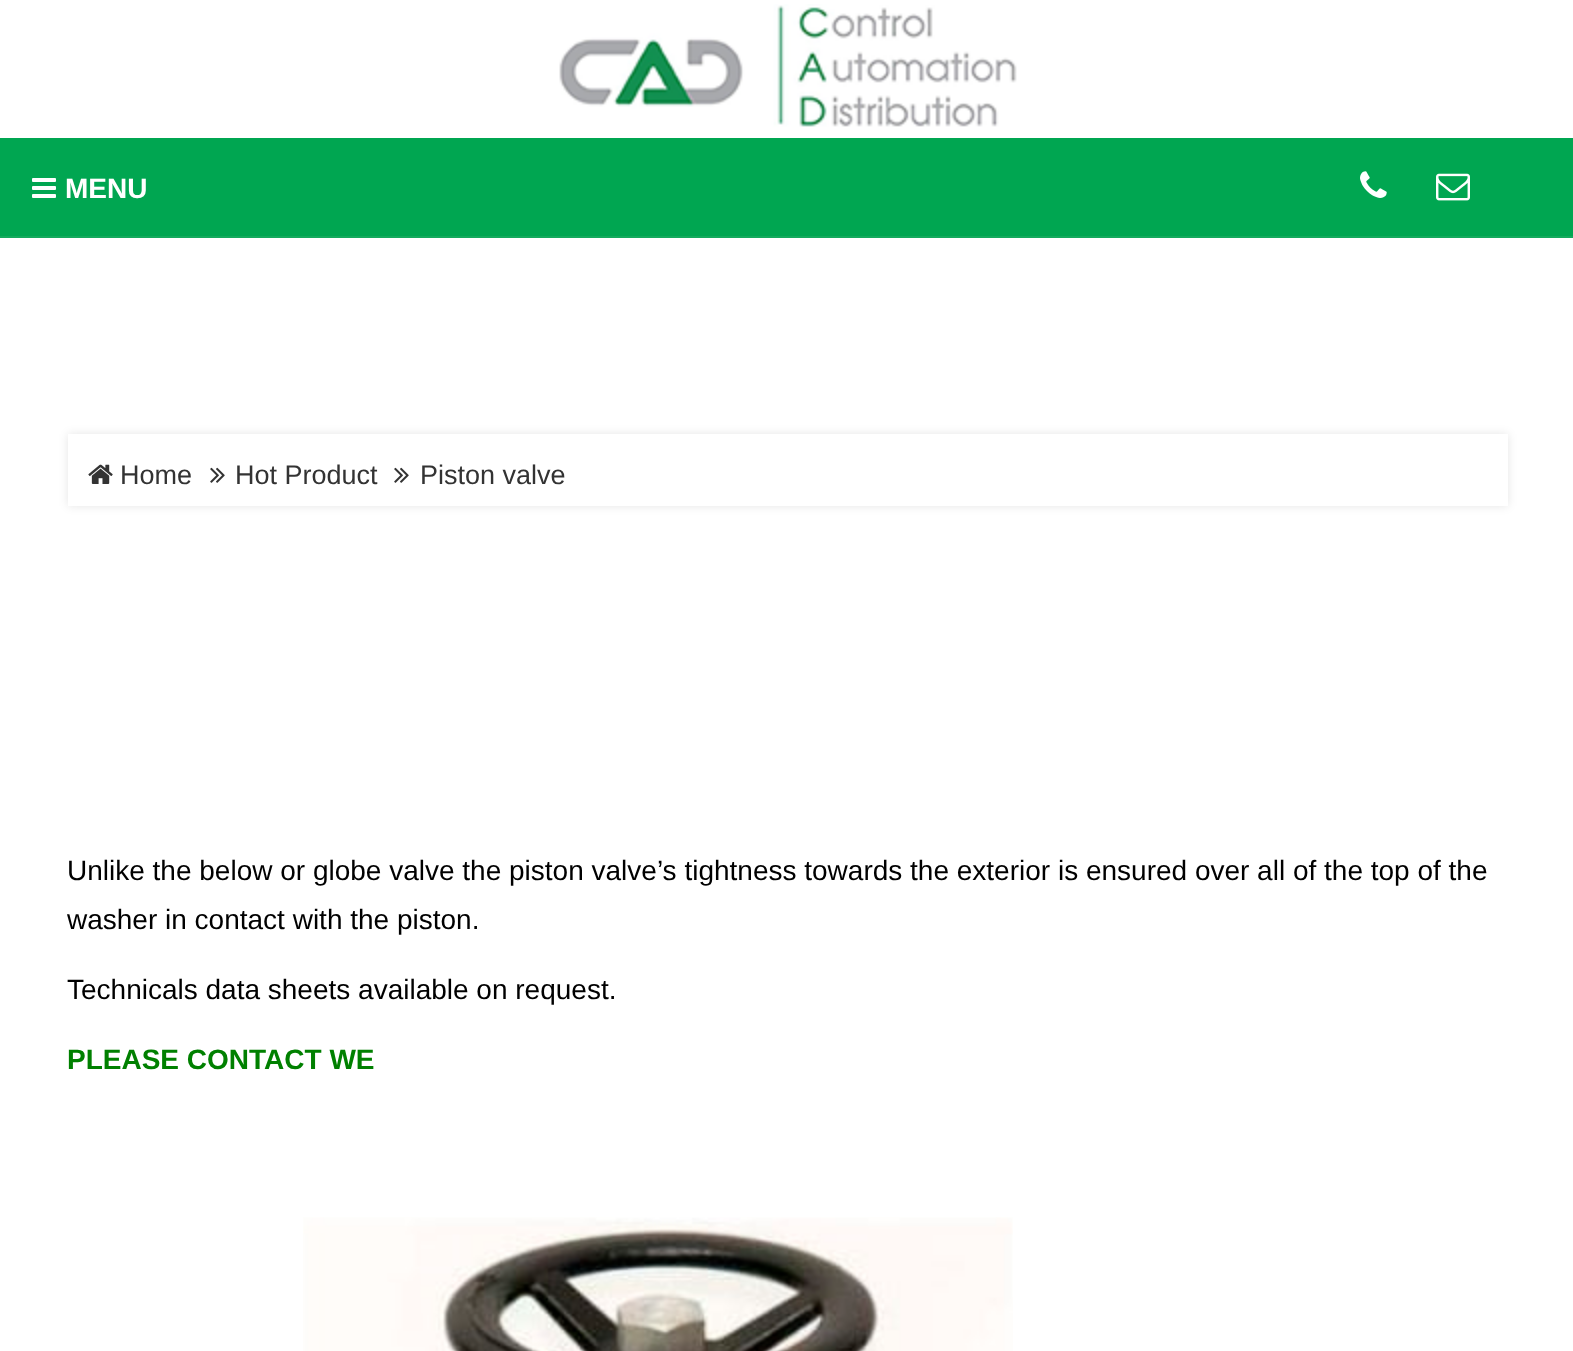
<!DOCTYPE html>
<meta charset="utf-8">
<style>body { margin: 0 } canvas { display: block }</style>
<canvas id="canvas" width="1573" height="1351"></canvas>
<script type="module">
  const canvas = document.getElementById("canvas");
  const ctx = canvas.getContext("2d");
  ctx.miterLimit = 4;
  ctx.fontKerning = "normal";
  async function loadImage(src) {
    const img = new Image();
    img.src = src;
    await img.decode();
    return img;
  }

  ctx.fillStyle = "#ffffff";
  ctx.fillRect(0, 0, 1573, 1351);
  ctx.drawImage(await loadImage("img1.png"), 559, 4, 458, 123);
  ctx.fillStyle = "#00a651";
  ctx.fillRect(0, 138, 1573, 98);
  ctx.fillStyle = "#14aa5d";
  ctx.fillRect(0, 236, 1573, 2);
  ctx.drawImage(await loadImage("img2.png"), 32, 178, 24, 20);
  ctx.font = "bold 28px Liberation Sans";
  ctx.fillStyle = "#ffffff";
  ctx.fillText("MENU", 65, 198);
  ctx.drawImage(await loadImage("img3.png"), 1360, 171, 27, 27);
  ctx.drawImage(await loadImage("img4.png"), 1436, 173, 34, 28);
  ctx.save();
  ctx.beginPath();
  ctx.moveTo(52, 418);
  ctx.lineTo(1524, 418);
  ctx.lineTo(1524, 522);
  ctx.lineTo(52, 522);
  ctx.closePath();
  ctx.moveTo(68, 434);
  ctx.lineTo(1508, 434);
  ctx.lineTo(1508, 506);
  ctx.lineTo(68, 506);
  ctx.closePath();
  ctx.clip("evenodd");
  ctx.fillStyle = "rgba(0, 0, 0, 0.1)";
  ctx.filter = "blur(5px)";
  ctx.beginPath();
  ctx.rect(68, 434, 1440, 72);
  ctx.fill();
  ctx.filter = "none";
  ctx.restore();
  ctx.drawImage(await loadImage("img5.png"), 88, 464, 25, 20);
  ctx.font = "27px Liberation Sans";
  ctx.fillStyle = "#333333";
  ctx.fillText("Home", 120, 484);
  ctx.drawImage(await loadImage("img6.png"), 210, 467, 15, 16);
  ctx.fillText("Hot Product", 235, 484);
  ctx.drawImage(await loadImage("img6.png"), 394, 467, 15, 16);
  ctx.fillText("Piston valve", 420, 484);
  ctx.font = "28px Liberation Sans";
  ctx.fillStyle = "#000000";
  ctx.fillText("Unlike the below or globe valve the piston valve’s tightness towards the exterior is ensured over all of the top of the", 67, 880);
  ctx.fillText("washer in contact with the piston.", 67, 929);
  ctx.fillText("Technicals data sheets available on request.", 67, 999);
  ctx.font = "bold 28px Liberation Sans";
  ctx.fillStyle = "#008000";
  ctx.fillText("PLEASE CONTACT WE", 67, 1069);
  ctx.drawImage(await loadImage("img7.png"), 303, 1217, 710, 134);
</script>
